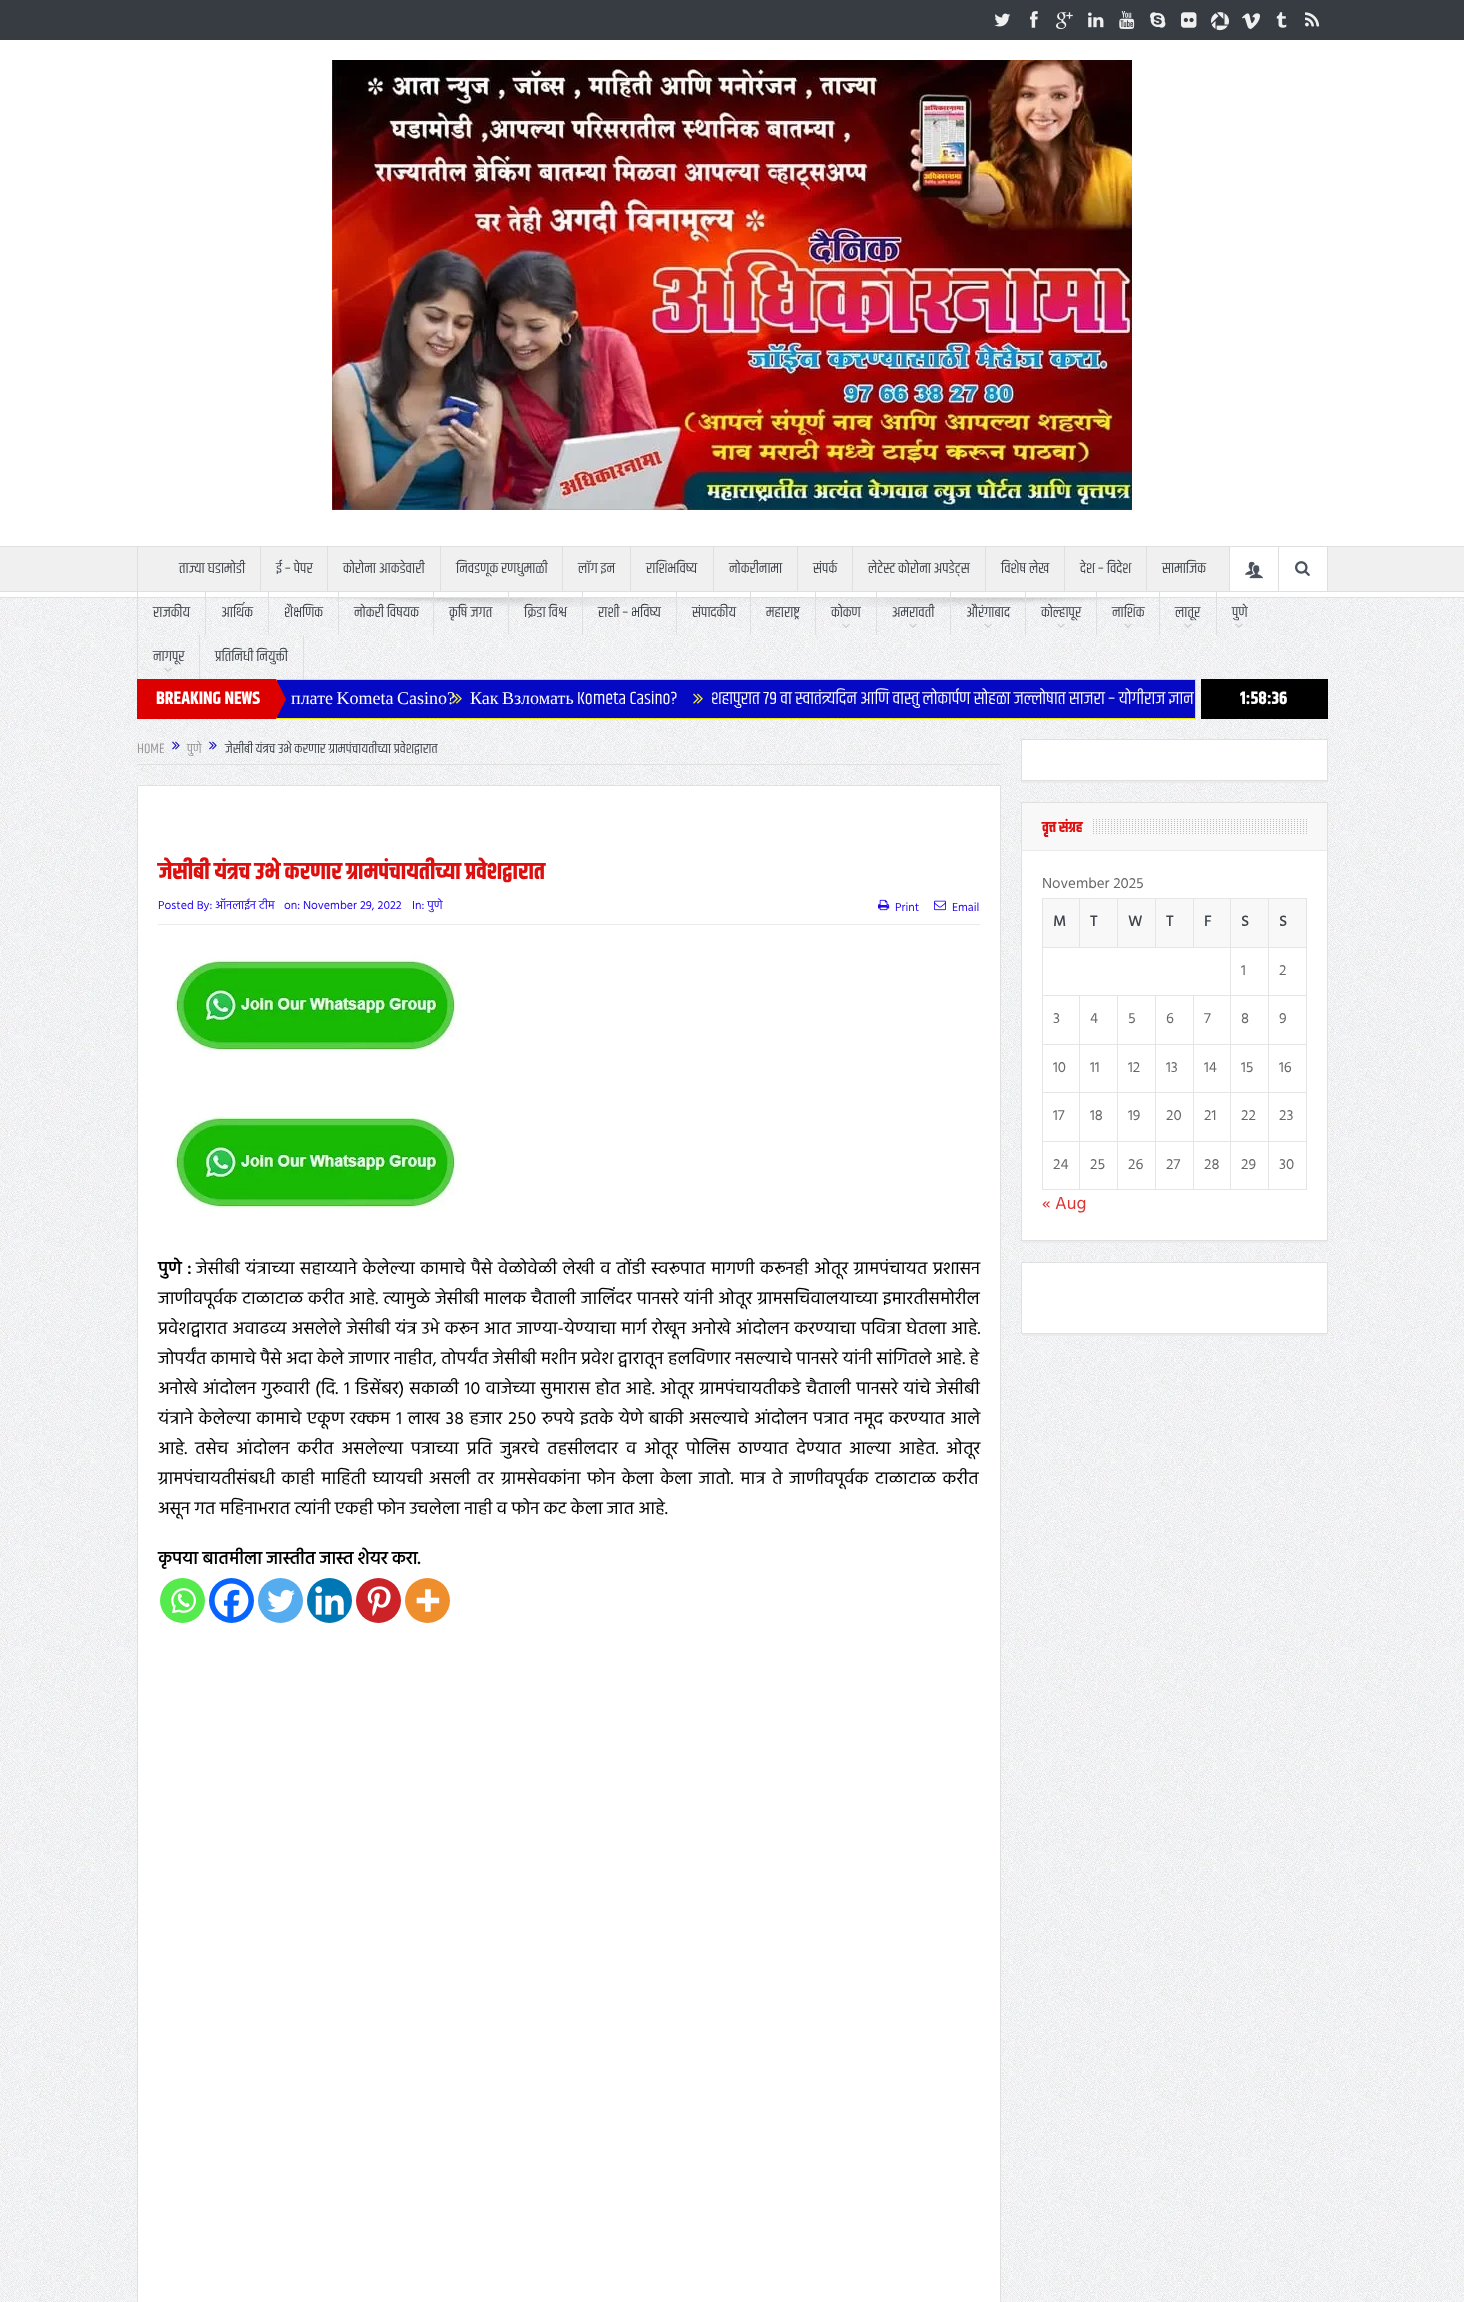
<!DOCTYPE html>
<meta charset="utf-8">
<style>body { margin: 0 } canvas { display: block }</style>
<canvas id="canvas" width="1464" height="2302"></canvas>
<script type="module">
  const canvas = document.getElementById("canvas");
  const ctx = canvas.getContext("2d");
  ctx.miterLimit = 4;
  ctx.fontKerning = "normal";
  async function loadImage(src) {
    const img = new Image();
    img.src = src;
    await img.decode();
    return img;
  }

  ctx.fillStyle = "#ffffff";
  ctx.fillRect(0, 0, 1464, 2302);
  ctx.drawImage(await loadImage("img1.png"), 0, 598, 1464, 1704);
  ctx.fillStyle = "#373c43";
  ctx.fillRect(0, 0, 1464, 40);
  ctx.drawImage(await loadImage("img2.png"), 994, 13, 17, 14);
  ctx.drawImage(await loadImage("img3.png"), 1030, 11, 8, 17);
  ctx.drawImage(await loadImage("img4.png"), 1056, 12, 17, 17);
  ctx.drawImage(await loadImage("img5.png"), 1088, 12, 16, 16);
  ctx.drawImage(await loadImage("img6.png"), 1119, 11, 16, 18);
  ctx.drawImage(await loadImage("img7.png"), 1150, 12, 16, 16);
  ctx.drawImage(await loadImage("img8.png"), 1181, 12, 16, 16);
  ctx.drawImage(await loadImage("img9.png"), 1211, 12, 18, 19);
  ctx.drawImage(await loadImage("img10.png"), 1242, 13, 18, 16);
  ctx.drawImage(await loadImage("img11.png"), 1276, 12, 11, 16);
  ctx.drawImage(await loadImage("img12.png"), 1305, 12, 15, 15);
  ctx.drawImage(await loadImage("img13.png"), 332, 60, 800, 450);
  ctx.fillStyle = "#dfdfdf";
  ctx.fillRect(0, 546, 1464, 1);
  ctx.fillRect(0, 597, 1464, 1);
  ctx.fillStyle = "#f0f0f0";
  ctx.fillRect(0, 547, 1464, 44);
  ctx.fillStyle = "#dfdfdf";
  ctx.fillRect(0, 591, 1464, 1);
  ctx.fillRect(137, 547, 1, 132);
  ctx.font = "15px Khand";
  ctx.fillStyle = "#373c43";
  ctx.fillText("ताज्या घडामोडी", 179, 573);
  ctx.fillStyle = "#dfdfdf";
  ctx.fillRect(260, 547, 1, 44);
  ctx.fillStyle = "#373c43";
  ctx.fillText("ई – पेपर", 276, 573);
  ctx.fillStyle = "#dfdfdf";
  ctx.fillRect(327, 547, 1, 44);
  ctx.fillStyle = "#373c43";
  ctx.fillText("कोरोना आकडेवारी", 343, 573);
  ctx.fillStyle = "#dfdfdf";
  ctx.fillRect(440, 547, 1, 44);
  ctx.fillStyle = "#373c43";
  ctx.fillText("निवडणूक रणधुमाळी", 456, 573);
  ctx.fillStyle = "#dfdfdf";
  ctx.fillRect(562, 547, 1, 44);
  ctx.fillStyle = "#373c43";
  ctx.fillText("लॉग इन", 578, 573);
  ctx.fillStyle = "#dfdfdf";
  ctx.fillRect(630, 547, 1, 44);
  ctx.fillStyle = "#373c43";
  ctx.fillText("राशिभविष्य", 646, 573);
  ctx.fillStyle = "#dfdfdf";
  ctx.fillRect(713, 547, 1, 44);
  ctx.fillStyle = "#373c43";
  ctx.fillText("नोकरीनामा", 729, 573);
  ctx.fillStyle = "#dfdfdf";
  ctx.fillRect(797, 547, 1, 44);
  ctx.fillStyle = "#373c43";
  ctx.fillText("संपर्क", 813, 573);
  ctx.fillStyle = "#dfdfdf";
  ctx.fillRect(852, 547, 1, 44);
  ctx.fillStyle = "#373c43";
  ctx.fillText("लेटेस्ट कोरोना अपडेट्स", 868, 573);
  ctx.fillStyle = "#dfdfdf";
  ctx.fillRect(985, 547, 1, 44);
  ctx.fillStyle = "#373c43";
  ctx.fillText("विशेष लेख", 1001, 573);
  ctx.fillStyle = "#dfdfdf";
  ctx.fillRect(1064, 547, 1, 44);
  ctx.fillStyle = "#373c43";
  ctx.fillText("देश – विदेश", 1080, 573);
  ctx.fillStyle = "#dfdfdf";
  ctx.fillRect(1146, 547, 1, 44);
  ctx.fillStyle = "#373c43";
  ctx.fillText("सामाजिक", 1162, 573);
  ctx.fillText("राजकीय", 153, 617);
  ctx.fillStyle = "#dfdfdf";
  ctx.fillRect(205, 591, 1, 44);
  ctx.fillStyle = "#373c43";
  ctx.fillText("आर्थिक", 221, 617);
  ctx.fillStyle = "#dfdfdf";
  ctx.fillRect(268, 591, 1, 44);
  ctx.fillStyle = "#373c43";
  ctx.fillText("शैक्षणिक", 284, 617);
  ctx.drawImage(await loadImage("img24.png"), 324, 598, 819, 9);
  ctx.fillStyle = "#dfdfdf";
  ctx.fillRect(338, 591, 1, 44);
  ctx.fillStyle = "#373c43";
  ctx.fillText("नोकरी विषयक", 354, 617);
  ctx.fillStyle = "#dfdfdf";
  ctx.fillRect(433, 591, 1, 44);
  ctx.fillStyle = "#373c43";
  ctx.fillText("कृषि जगत", 449, 617);
  ctx.fillStyle = "#dfdfdf";
  ctx.fillRect(508, 591, 1, 44);
  ctx.fillStyle = "#373c43";
  ctx.fillText("क्रिडा विश्व", 524, 617);
  ctx.fillStyle = "#dfdfdf";
  ctx.fillRect(582, 591, 1, 44);
  ctx.fillStyle = "#373c43";
  ctx.fillText("राशी – भविष्य", 598, 617);
  ctx.fillStyle = "#dfdfdf";
  ctx.fillRect(676, 591, 1, 44);
  ctx.fillStyle = "#373c43";
  ctx.fillText("संपादकीय", 692, 617);
  ctx.fillStyle = "#dfdfdf";
  ctx.fillRect(750, 591, 1, 44);
  ctx.fillStyle = "#373c43";
  ctx.fillText("महाराष्ट्र", 766, 617);
  ctx.fillStyle = "#dfdfdf";
  ctx.fillRect(815, 591, 1, 44);
  ctx.fillStyle = "#373c43";
  ctx.fillText("कोकण", 831, 617);
  ctx.drawImage(await loadImage("img14.png"), 842, 623, 8, 5);
  ctx.fillStyle = "#dfdfdf";
  ctx.fillRect(876, 591, 1, 44);
  ctx.fillStyle = "#373c43";
  ctx.fillText("अमरावती", 892, 617);
  ctx.drawImage(await loadImage("img15.png"), 909, 623, 8, 5);
  ctx.fillStyle = "#dfdfdf";
  ctx.fillRect(950, 591, 1, 44);
  ctx.fillStyle = "#373c43";
  ctx.fillText("औरंगाबाद", 966, 617);
  ctx.drawImage(await loadImage("img16.png"), 984, 623, 8, 5);
  ctx.fillStyle = "#dfdfdf";
  ctx.fillRect(1025, 591, 1, 44);
  ctx.fillStyle = "#373c43";
  ctx.fillText("कोल्हापूर", 1041, 617);
  ctx.drawImage(await loadImage("img17.png"), 1057, 623, 8, 5);
  ctx.fillStyle = "#dfdfdf";
  ctx.fillRect(1096, 591, 1, 44);
  ctx.fillStyle = "#373c43";
  ctx.fillText("नाशिक", 1112, 617);
  ctx.drawImage(await loadImage("img18.png"), 1124, 623, 8, 5);
  ctx.fillStyle = "#dfdfdf";
  ctx.fillRect(1159, 591, 1, 44);
  ctx.fillStyle = "#373c43";
  ctx.fillText("लातूर", 1175, 617);
  ctx.drawImage(await loadImage("img19.png"), 1184, 623, 8, 5);
  ctx.fillStyle = "#dfdfdf";
  ctx.fillRect(1216, 591, 1, 44);
  ctx.fillStyle = "#373c43";
  ctx.fillText("पुणे", 1232, 617);
  ctx.drawImage(await loadImage("img20.png"), 1235, 623, 8, 5);
  ctx.fillText("नागपूर", 153, 661);
  ctx.drawImage(await loadImage("img21.png"), 164, 667, 8, 5);
  ctx.fillStyle = "#dfdfdf";
  ctx.fillRect(303, 635, 1, 44);
  ctx.fillRect(199, 635, 1, 44);
  ctx.fillStyle = "#373c43";
  ctx.fillText("प्रतिनिधी नियुक्ती", 215, 661);
  ctx.fillStyle = "#ffffff";
  ctx.fillRect(1230, 547, 48, 44);
  ctx.fillStyle = "#dfdfdf";
  ctx.fillRect(1278, 547, 1, 44);
  ctx.fillRect(1229, 547, 1, 44);
  ctx.drawImage(await loadImage("img22.png"), 1245, 561, 18, 18);
  ctx.fillStyle = "#ffffff";
  ctx.fillRect(1279, 547, 48, 44);
  ctx.fillStyle = "#dfdfdf";
  ctx.fillRect(1327, 547, 1, 44);
  ctx.drawImage(await loadImage("img23.png"), 1295, 561, 15, 15);
  ctx.fillStyle = "#dd0000";
  ctx.fillRect(137, 679, 139, 40);
  ctx.font = "bold 18px Khand";
  ctx.fillStyle = "#ffffff";
  ctx.fillText("BREAKING NEWS", 156, 704);
  ctx.fillStyle = "#0509c4";
  ctx.beginPath();
  ctx.rect(276.5, 679.5, 919, 39);
  ctx.fill();
  ctx.strokeStyle = "#eded02";
  ctx.stroke();
  ctx.fillStyle = "#dd0000";
  ctx.beginPath();
  ctx.moveTo(276, 719);
  ctx.lineTo(276, 679);
  ctx.lineTo(286, 699);
  ctx.closePath();
  ctx.fill();
  ctx.wordSpacing = "-1px";
  ctx.font = "18px Liberation Serif";
  ctx.fillStyle = "#ffffff";
  ctx.fillText("плате Kometa Casino?", 291, 704);
  ctx.drawImage(await loadImage("img25.png"), 452, 693, 10, 11);
  ctx.wordSpacing = "0px";
  ctx.fillText("Как", 470, 704);
  ctx.fillText("Взломать", 502, 704);
  ctx.font = "18px Khand";
  ctx.fillText("Kometa Casino?", 577, 704);
  ctx.drawImage(await loadImage("img26.png"), 693, 693, 10, 11);
  ctx.fillText("शहापुरात ७९ वा स्वातंत्र्यदिन आणि वास्तु लोकार्पण सोहळा जल्लोषात साजरा – योगीराज ज्ञान", 711, 704);
  ctx.fillStyle = "#000000";
  ctx.fillRect(1201, 679, 127, 40);
  ctx.font = "bold 18px Khand";
  ctx.fillStyle = "#ffffff";
  ctx.fillText("1:58:36", 1240, 704);
  ctx.fillStyle = "#e0e0e0";
  ctx.fillRect(137, 764, 864, 1);
  ctx.font = "14px Khand";
  ctx.fillStyle = "#959595";
  ctx.fillText("HOME", 137, 753);
  ctx.drawImage(await loadImage("img27.png"), 172, 741, 8, 9);
  ctx.fillText("पुणे", 187, 753);
  ctx.drawImage(await loadImage("img28.png"), 209, 741, 8, 9);
  ctx.fillStyle = "#373c43";
  ctx.fillText("जेसीबी यंत्रच उभे करणार ग्रामपंचायतीच्या प्रवेशद्वारात", 225, 753);
  ctx.fillStyle = "#ffffff";
  ctx.beginPath();
  ctx.rect(137.5, 785.5, 863, 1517);
  ctx.fill();
  ctx.strokeStyle = "#e0e0e0";
  ctx.stroke();
  ctx.font = "bold 24px Khand";
  ctx.fillStyle = "#dd0f0f";
  ctx.fillText("जेसीबी यंत्रच उभे करणार ग्रामपंचायतीच्या प्रवेशद्वारात", 158, 879);
  ctx.fillStyle = "#eaeaea";
  ctx.fillRect(158, 924, 822, 1);
  ctx.font = "12px Hind";
  ctx.fillStyle = "#2207ef";
  ctx.fillText("Posted By: ऑनलाईन टीम", 158, 909);
  ctx.fillText("on: November 29, 2022", 284, 909);
  ctx.fillText("In: पुणे", 412, 909);
  ctx.drawImage(await loadImage("img29.png"), 878, 899, 12, 12);
  ctx.fillText("Print", 895, 911);
  ctx.drawImage(await loadImage("img30.png"), 934, 900, 12, 11);
  ctx.fillText("Email", 952, 911);
  ctx.drawImage(await loadImage("img31.png"), 174, 957, 287, 96);
  ctx.drawImage(await loadImage("img31.png"), 174, 1114, 287, 96);
  ctx.wordSpacing = "1.2px";
  ctx.font = "bold 18px Hind";
  ctx.fillStyle = "#000000";
  ctx.fillText("पुणे :", 158, 1274);
  ctx.font = "18px Hind";
  ctx.fillText("जेसीबी यंत्राच्या सहाय्याने केलेल्या कामाचे पैसे वेळोवेळी लेखी व तोंडी स्वरूपात मागणी करूनही ओतूर ग्रामपंचायत प्रशासन", 196, 1274);
  ctx.wordSpacing = "0.6px";
  ctx.fillText("जाणीवपूर्वक टाळाटाळ करीत आहे. त्यामुळे जेसीबी मालक चैताली जालिंदर पानसरे यांनी ओतूर ग्रामसचिवालयाच्या इमारतीसमोरील", 158, 1304);
  ctx.wordSpacing = "0.75px";
  ctx.fillText("प्रवेशद्वारात अवाढव्य असलेले जेसीबी यंत्र उभे करून आत जाण्या-येण्याचा मार्ग रोखून अनोखे आंदोलन करण्याचा पवित्रा घेतला आहे.", 158, 1334);
  ctx.wordSpacing = "0px";
  ctx.fillText("जोपर्यंत कामाचे पैसे अदा केले जाणार नाहीत, तोपर्यंत जेसीबी मशीन प्रवेश द्वारातून हलविणार नसल्याचे पानसरे यांनी सांगितले आहे. हे", 158, 1364);
  ctx.wordSpacing = "0.9px";
  ctx.fillText("अनोखे आंदोलन गुरुवारी (दि. १ डिसेंबर) सकाळी १० वाजेच्या सुमारास होत आहे. ओतूर ग्रामपंचायतीकडे चैताली पानसरे यांचे जेसीबी", 158, 1394);
  ctx.wordSpacing = "1.2px";
  ctx.fillText("यंत्राने केलेल्या कामाचे एकूण रक्कम १ लाख ३८ हजार २५० रुपये इतके येणे बाकी असल्याचे आंदोलन पत्रात नमूद करण्यात आले", 158, 1424);
  ctx.wordSpacing = "3.5px";
  ctx.fillText("आहे. तसेच आंदोलन करीत असलेल्या पत्राच्या प्रति जुन्नरचे तहसीलदार व ओतूर पोलिस ठाण्यात देण्यात आल्या आहेत. ओतूर", 158, 1454);
  ctx.wordSpacing = "2.25px";
  ctx.fillText("ग्रामपंचायतीसंबधी काही माहिती घ्यायची असली तर ग्रामसेवकांना फोन केला केला जातो. मात्र ते जाणीवपूर्वक टाळाटाळ करीत", 158, 1484);
  ctx.wordSpacing = "0px";
  ctx.fillText("असून गत महिनाभरात त्यांनी एकही फोन उचलेला नाही व फोन कट केला जात आहे.", 158, 1514);
  ctx.font = "bold 18px Hind";
  ctx.fillText("कृपया बातमीला जास्तीत जास्त शेयर करा.", 158, 1564);
  ctx.fillStyle = "#55eb4c";
  ctx.beginPath();
  ctx.arc(182.5, 1600.5, 22.5, 0, Math.PI * 2);
  ctx.fill();
  ctx.drawImage(await loadImage("img32.png"), 171, 1588, 25, 26);
  ctx.fillStyle = "#0765fe";
  ctx.beginPath();
  ctx.arc(231.5, 1600.5, 22.5, 0, Math.PI * 2);
  ctx.fill();
  ctx.drawImage(await loadImage("img33.png"), 214, 1583, 35, 35);
  ctx.fillStyle = "#55acee";
  ctx.beginPath();
  ctx.arc(280.5, 1600.5, 22.5, 0, Math.PI * 2);
  ctx.fill();
  ctx.drawImage(await loadImage("img34.png"), 267, 1589, 28, 24);
  ctx.fillStyle = "#0077b5";
  ctx.beginPath();
  ctx.arc(329.5, 1600.5, 22.5, 0, Math.PI * 2);
  ctx.fill();
  ctx.drawImage(await loadImage("img35.png"), 315, 1586, 29, 29);
  ctx.fillStyle = "#cc2329";
  ctx.beginPath();
  ctx.arc(378.5, 1600.5, 22.5, 0, Math.PI * 2);
  ctx.fill();
  ctx.drawImage(await loadImage("img36.png"), 367, 1586, 24, 30);
  ctx.fillStyle = "#ee8e2d";
  ctx.beginPath();
  ctx.arc(427.5, 1600.5, 22.5, 0, Math.PI * 2);
  ctx.fill();
  ctx.drawImage(await loadImage("img37.png"), 416, 1589, 24, 23);
  ctx.fillStyle = "#ffffff";
  ctx.beginPath();
  ctx.rect(1021.5, 739.5, 306, 41);
  ctx.fill();
  ctx.stroke();
  ctx.fillStyle = "#ebebeb";
  ctx.fillRect(1022, 781, 305, 2);
  ctx.fillStyle = "#ffffff";
  ctx.fillRect(1022, 851, 305, 389);
  ctx.strokeRect(1021.5, 802.5, 306, 438);
  ctx.fillStyle = "#f8f8f8";
  ctx.fillRect(1022, 803, 305, 47);
  ctx.fillStyle = "#eaeaea";
  ctx.fillRect(1022, 850, 305, 1);
  ctx.drawImage(await loadImage("img38.png"), 1093, 819, 214, 15);
  ctx.font = "bold 15px Khand";
  ctx.fillStyle = "#dd0f0f";
  ctx.fillText("वृत्त संग्रह", 1042, 832);
  ctx.font = "15px Hind";
  ctx.fillStyle = "#686868";
  ctx.fillText("November 2025", 1042, 888);
  ctx.fillStyle = "#f8f8f8";
  ctx.fillRect(1043, 899, 36, 48);
  ctx.fillStyle = "#e5e5e5";
  ctx.fillRect(1268, 898, 39, 1);
  ctx.fillRect(1268, 947, 39, 1);
  ctx.fillRect(1268, 995, 39, 1);
  ctx.fillRect(1268, 1044, 39, 1);
  ctx.fillRect(1268, 1092, 39, 1);
  ctx.fillRect(1268, 1141, 39, 1);
  ctx.fillRect(1306, 1141, 1, 49);
  ctx.fillRect(1268, 1189, 39, 1);
  ctx.fillRect(1268, 1141, 1, 49);
  ctx.fillRect(1230, 1141, 39, 1);
  ctx.fillRect(1268, 1092, 1, 50);
  ctx.fillRect(1230, 1092, 39, 1);
  ctx.fillRect(1268, 1044, 1, 49);
  ctx.fillRect(1230, 1044, 39, 1);
  ctx.fillRect(1268, 995, 1, 50);
  ctx.fillRect(1230, 995, 39, 1);
  ctx.fillRect(1268, 947, 1, 49);
  ctx.fillRect(1230, 947, 39, 1);
  ctx.fillRect(1268, 898, 1, 50);
  ctx.fillRect(1230, 898, 39, 1);
  ctx.fillRect(1230, 1189, 39, 1);
  ctx.fillRect(1230, 1141, 1, 49);
  ctx.fillRect(1193, 1141, 38, 1);
  ctx.fillRect(1230, 1092, 1, 50);
  ctx.fillRect(1193, 1092, 38, 1);
  ctx.fillRect(1230, 1044, 1, 49);
  ctx.fillRect(1193, 1044, 38, 1);
  ctx.fillRect(1230, 995, 1, 50);
  ctx.fillRect(1193, 995, 38, 1);
  ctx.fillRect(1230, 947, 1, 49);
  ctx.fillRect(1042, 947, 189, 1);
  ctx.fillRect(1230, 898, 1, 50);
  ctx.fillRect(1193, 898, 38, 1);
  ctx.fillRect(1193, 898, 1, 50);
  ctx.fillRect(1155, 898, 39, 1);
  ctx.fillRect(1155, 898, 1, 50);
  ctx.fillRect(1117, 898, 39, 1);
  ctx.fillRect(1117, 898, 1, 50);
  ctx.fillRect(1079, 898, 39, 1);
  ctx.fillRect(1079, 898, 1, 50);
  ctx.fillRect(1042, 898, 38, 1);
  ctx.fillRect(1193, 1189, 38, 1);
  ctx.fillRect(1193, 1141, 1, 49);
  ctx.fillRect(1155, 1141, 39, 1);
  ctx.fillRect(1193, 1092, 1, 50);
  ctx.fillRect(1155, 1092, 39, 1);
  ctx.fillRect(1193, 1044, 1, 49);
  ctx.fillRect(1155, 1044, 39, 1);
  ctx.fillRect(1193, 995, 1, 50);
  ctx.fillRect(1155, 995, 39, 1);
  ctx.fillRect(1155, 1189, 39, 1);
  ctx.fillRect(1155, 1141, 1, 49);
  ctx.fillRect(1117, 1141, 39, 1);
  ctx.fillRect(1155, 1092, 1, 50);
  ctx.fillRect(1117, 1092, 39, 1);
  ctx.fillRect(1155, 1044, 1, 49);
  ctx.fillRect(1117, 1044, 39, 1);
  ctx.fillRect(1155, 995, 1, 50);
  ctx.fillRect(1117, 995, 39, 1);
  ctx.fillRect(1117, 1189, 39, 1);
  ctx.fillRect(1117, 1141, 1, 49);
  ctx.fillRect(1079, 1141, 39, 1);
  ctx.fillRect(1117, 1092, 1, 50);
  ctx.fillRect(1079, 1092, 39, 1);
  ctx.fillRect(1117, 1044, 1, 49);
  ctx.fillRect(1079, 1044, 39, 1);
  ctx.fillRect(1117, 995, 1, 50);
  ctx.fillRect(1079, 995, 39, 1);
  ctx.fillRect(1079, 1189, 39, 1);
  ctx.fillRect(1079, 1141, 1, 49);
  ctx.fillRect(1042, 1141, 38, 1);
  ctx.fillRect(1079, 1092, 1, 50);
  ctx.fillRect(1042, 1092, 38, 1);
  ctx.fillRect(1079, 1044, 1, 49);
  ctx.fillRect(1042, 1044, 38, 1);
  ctx.fillRect(1079, 995, 1, 50);
  ctx.fillRect(1042, 995, 38, 1);
  ctx.fillRect(1042, 1189, 38, 1);
  ctx.fillRect(1042, 1141, 1, 49);
  ctx.fillRect(1042, 1092, 1, 50);
  ctx.fillRect(1042, 1044, 1, 49);
  ctx.fillRect(1042, 995, 1, 50);
  ctx.fillRect(1042, 947, 1, 49);
  ctx.fillRect(1042, 898, 1, 50);
  ctx.font = "bold 15px Hind";
  ctx.fillStyle = "#40454d";
  ctx.fillText("M", 1053, 926);
  ctx.fillStyle = "#f8f8f8";
  ctx.fillRect(1080, 899, 37, 48);
  ctx.fillStyle = "#40454d";
  ctx.fillText("T", 1090, 926);
  ctx.fillStyle = "#f8f8f8";
  ctx.fillRect(1118, 899, 37, 48);
  ctx.fillStyle = "#40454d";
  ctx.fillText("W", 1128, 926);
  ctx.fillStyle = "#f8f8f8";
  ctx.fillRect(1156, 899, 37, 48);
  ctx.fillStyle = "#40454d";
  ctx.fillText("T", 1166, 926);
  ctx.fillStyle = "#f8f8f8";
  ctx.fillRect(1194, 899, 36, 48);
  ctx.fillStyle = "#40454d";
  ctx.fillText("F", 1204, 926);
  ctx.fillStyle = "#f8f8f8";
  ctx.fillRect(1231, 899, 37, 48);
  ctx.fillStyle = "#40454d";
  ctx.fillText("S", 1241, 926);
  ctx.fillStyle = "#f8f8f8";
  ctx.fillRect(1269, 899, 37, 48);
  ctx.fillStyle = "#e5e5e5";
  ctx.fillRect(1306, 1092, 1, 50);
  ctx.fillRect(1306, 1044, 1, 49);
  ctx.fillRect(1306, 995, 1, 50);
  ctx.fillRect(1306, 947, 1, 49);
  ctx.fillRect(1306, 898, 1, 50);
  ctx.fillStyle = "#40454d";
  ctx.fillText("S", 1279, 926);
  ctx.font = "15px Hind";
  ctx.fillStyle = "#686868";
  ctx.fillText("1", 1241, 975);
  ctx.fillText("2", 1279, 975);
  ctx.fillText("3", 1053, 1023);
  ctx.fillText("4", 1090, 1023);
  ctx.fillText("5", 1128, 1023);
  ctx.fillText("6", 1166, 1023);
  ctx.fillText("7", 1204, 1023);
  ctx.fillText("8", 1241, 1023);
  ctx.fillText("9", 1279, 1023);
  ctx.fillText("10", 1053, 1072);
  ctx.fillText("11", 1090, 1072);
  ctx.fillText("12", 1128, 1072);
  ctx.fillText("13", 1166, 1072);
  ctx.fillText("14", 1204, 1072);
  ctx.fillText("15", 1241, 1072);
  ctx.fillText("16", 1279, 1072);
  ctx.fillText("17", 1053, 1120);
  ctx.fillText("18", 1090, 1120);
  ctx.fillText("19", 1128, 1120);
  ctx.fillText("20", 1166, 1120);
  ctx.fillText("21", 1204, 1120);
  ctx.fillText("22", 1241, 1120);
  ctx.fillText("23", 1279, 1120);
  ctx.fillText("24", 1053, 1169);
  ctx.fillText("25", 1090, 1169);
  ctx.fillText("26", 1128, 1169);
  ctx.fillText("27", 1166, 1169);
  ctx.fillText("28", 1204, 1169);
  ctx.fillText("29", 1241, 1169);
  ctx.fillText("30", 1279, 1169);
  ctx.font = "18px Hind";
  ctx.fillStyle = "#dd3333";
  ctx.fillText("« Aug", 1042, 1209);
  ctx.fillStyle = "#ebebeb";
  ctx.fillRect(1022, 1241, 305, 2);
  ctx.fillStyle = "#ffffff";
  ctx.beginPath();
  ctx.rect(1021.5, 1262.5, 306, 71);
  ctx.fill();
  ctx.stroke();
  ctx.fillStyle = "#ebebeb";
  ctx.fillRect(1022, 1334, 305, 2);
</script>
